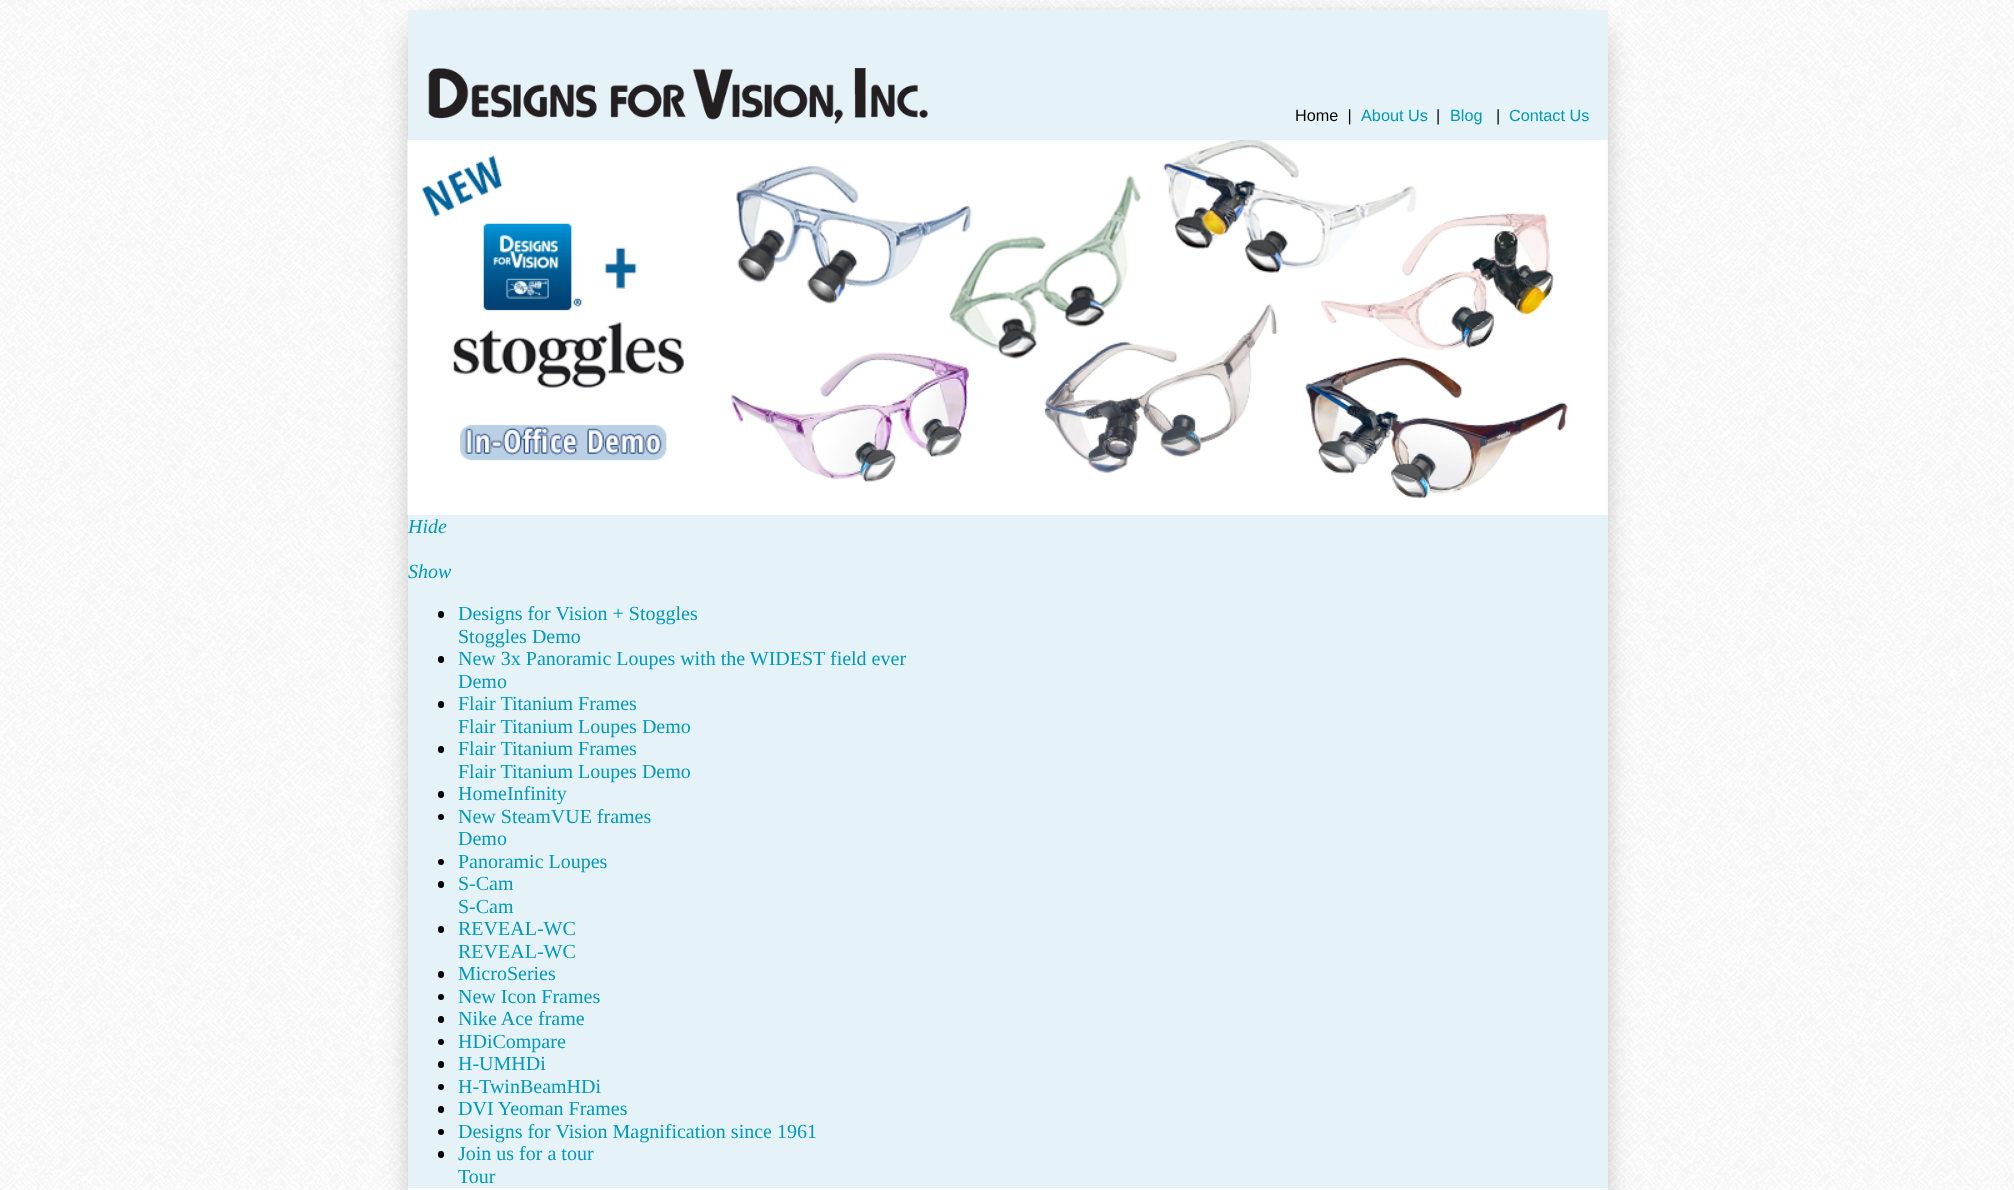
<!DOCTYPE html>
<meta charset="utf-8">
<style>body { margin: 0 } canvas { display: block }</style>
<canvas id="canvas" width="2014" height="1190"></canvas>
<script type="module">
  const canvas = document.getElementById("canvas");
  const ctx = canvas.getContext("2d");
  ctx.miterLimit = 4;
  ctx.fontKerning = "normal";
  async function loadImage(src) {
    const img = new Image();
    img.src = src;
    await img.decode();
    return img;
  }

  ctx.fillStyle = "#ffffff";
  ctx.fillRect(0, 0, 2014, 1190);
  ctx.drawImage(await loadImage("img1.png"), 0, 0, 2014, 1190);
  ctx.fillStyle = "rgba(0, 0, 0, 0.2)";
  ctx.filter = "blur(12.5px)";
  ctx.beginPath();
  ctx.roundRect(408, 23, 1175, 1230, 25);
  ctx.fill();
  ctx.filter = "none";
  ctx.filter = "blur(12.5px)";
  ctx.beginPath();
  ctx.roundRect(433, 23, 1175, 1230, 25);
  ctx.fill();
  ctx.filter = "none";
  ctx.fillStyle = "#ffffff";
  ctx.fillRect(408, 1188, 1200, 2);
  ctx.fillStyle = "#e5f2f8";
  ctx.fillRect(408, 10, 1200, 1178);
  ctx.drawImage(await loadImage("img2.png"), 428, 68, 500, 56);
  ctx.font = "16.25px Liberation Sans";
  ctx.fillStyle = "#000000";
  ctx.fillText("Home  |", 1295, 121);
  ctx.fillStyle = "#0099bf";
  ctx.fillText("About Us", 1361, 121);
  ctx.fillStyle = "#000000";
  ctx.fillText("|", 1436, 121);
  ctx.fillStyle = "#0099bf";
  ctx.fillText("Blog", 1450, 121);
  ctx.fillStyle = "#000000";
  ctx.fillText("|", 1496, 121);
  ctx.fillStyle = "#0099bf";
  ctx.fillText("Contact Us", 1509, 121);
  ctx.drawImage(await loadImage("img3.png"), 407, 140, 1201, 375);
  ctx.font = "italic 20px Liberation Serif";
  ctx.fillText("Hide", 408, 533);
  ctx.fillText("Show", 408, 578);
  ctx.fillStyle = "#000000";
  ctx.beginPath();
  ctx.roundRect(438, 611, 6, 7, 3);
  ctx.fill();
  ctx.font = "20px Liberation Serif";
  ctx.fillStyle = "#0099bf";
  ctx.fillText("Designs for Vision + Stoggles", 458, 620);
  ctx.fillText("Stoggles Demo", 458, 643);
  ctx.fillStyle = "#000000";
  ctx.beginPath();
  ctx.roundRect(438, 656, 6, 7, 3);
  ctx.fill();
  ctx.fillStyle = "#0099bf";
  ctx.fillText("New 3x Panoramic Loupes with the WIDEST field ever", 458, 665);
  ctx.fillText("Demo", 458, 688);
  ctx.fillStyle = "#000000";
  ctx.beginPath();
  ctx.roundRect(438, 701, 6, 7, 3);
  ctx.fill();
  ctx.fillStyle = "#0099bf";
  ctx.fillText("Flair Titanium Frames", 458, 710);
  ctx.fillText("Flair Titanium Loupes Demo", 458, 733);
  ctx.fillStyle = "#000000";
  ctx.beginPath();
  ctx.roundRect(438, 746, 6, 7, 3);
  ctx.fill();
  ctx.fillStyle = "#0099bf";
  ctx.fillText("Flair Titanium Frames", 458, 755);
  ctx.fillText("Flair Titanium Loupes Demo", 458, 778);
  ctx.fillStyle = "#000000";
  ctx.beginPath();
  ctx.roundRect(438, 791, 6, 7, 3);
  ctx.fill();
  ctx.fillStyle = "#0099bf";
  ctx.fillText("HomeInfinity", 458, 800);
  ctx.fillStyle = "#000000";
  ctx.beginPath();
  ctx.arc(441, 817, 3, 0, Math.PI * 2);
  ctx.fill();
  ctx.fillStyle = "#0099bf";
  ctx.fillText("New SteamVUE frames", 458, 823);
  ctx.fillText("Demo", 458, 845);
  ctx.fillStyle = "#000000";
  ctx.beginPath();
  ctx.arc(441, 862, 3, 0, Math.PI * 2);
  ctx.fill();
  ctx.fillStyle = "#0099bf";
  ctx.fillText("Panoramic Loupes", 458, 868);
  ctx.fillStyle = "#000000";
  ctx.beginPath();
  ctx.roundRect(438, 881, 6, 7, 3);
  ctx.fill();
  ctx.fillStyle = "#0099bf";
  ctx.fillText("S-Cam", 458, 890);
  ctx.fillText("S-Cam", 458, 913);
  ctx.fillStyle = "#000000";
  ctx.beginPath();
  ctx.roundRect(438, 926, 6, 7, 3);
  ctx.fill();
  ctx.fillStyle = "#0099bf";
  ctx.fillText("REVEAL-WC", 458, 935);
  ctx.fillText("REVEAL-WC", 458, 958);
  ctx.fillStyle = "#000000";
  ctx.beginPath();
  ctx.roundRect(438, 971, 6, 7, 3);
  ctx.fill();
  ctx.fillStyle = "#0099bf";
  ctx.fillText("MicroSeries", 458, 980);
  ctx.fillStyle = "#000000";
  ctx.beginPath();
  ctx.arc(441, 997, 3, 0, Math.PI * 2);
  ctx.fill();
  ctx.fillStyle = "#0099bf";
  ctx.fillText("New Icon Frames", 458, 1003);
  ctx.fillStyle = "#000000";
  ctx.beginPath();
  ctx.roundRect(438, 1016, 6, 7, 3);
  ctx.fill();
  ctx.fillStyle = "#0099bf";
  ctx.fillText("Nike Ace frame", 458, 1025);
  ctx.fillStyle = "#000000";
  ctx.beginPath();
  ctx.arc(441, 1042, 3, 0, Math.PI * 2);
  ctx.fill();
  ctx.fillStyle = "#0099bf";
  ctx.fillText("HDiCompare", 458, 1048);
  ctx.fillStyle = "#000000";
  ctx.beginPath();
  ctx.roundRect(438, 1061, 6, 7, 3);
  ctx.fill();
  ctx.fillStyle = "#0099bf";
  ctx.fillText("H-UMHDi", 458, 1070);
  ctx.fillStyle = "#000000";
  ctx.beginPath();
  ctx.arc(441, 1087, 3, 0, Math.PI * 2);
  ctx.fill();
  ctx.fillStyle = "#0099bf";
  ctx.fillText("H-TwinBeamHDi", 458, 1093);
  ctx.fillStyle = "#000000";
  ctx.beginPath();
  ctx.roundRect(438, 1106, 6, 7, 3);
  ctx.fill();
  ctx.fillStyle = "#0099bf";
  ctx.fillText("DVI Yeoman Frames", 458, 1115);
  ctx.fillStyle = "#000000";
  ctx.beginPath();
  ctx.arc(441, 1132, 3, 0, Math.PI * 2);
  ctx.fill();
  ctx.fillStyle = "#0099bf";
  ctx.fillText("Designs for Vision Magnification since 1961", 458, 1138);
  ctx.fillStyle = "#000000";
  ctx.beginPath();
  ctx.roundRect(438, 1151, 6, 7, 3);
  ctx.fill();
  ctx.fillStyle = "#0099bf";
  ctx.fillText("Join us for a tour", 458, 1160);
  ctx.fillText("Tour", 458, 1183);
</script>
